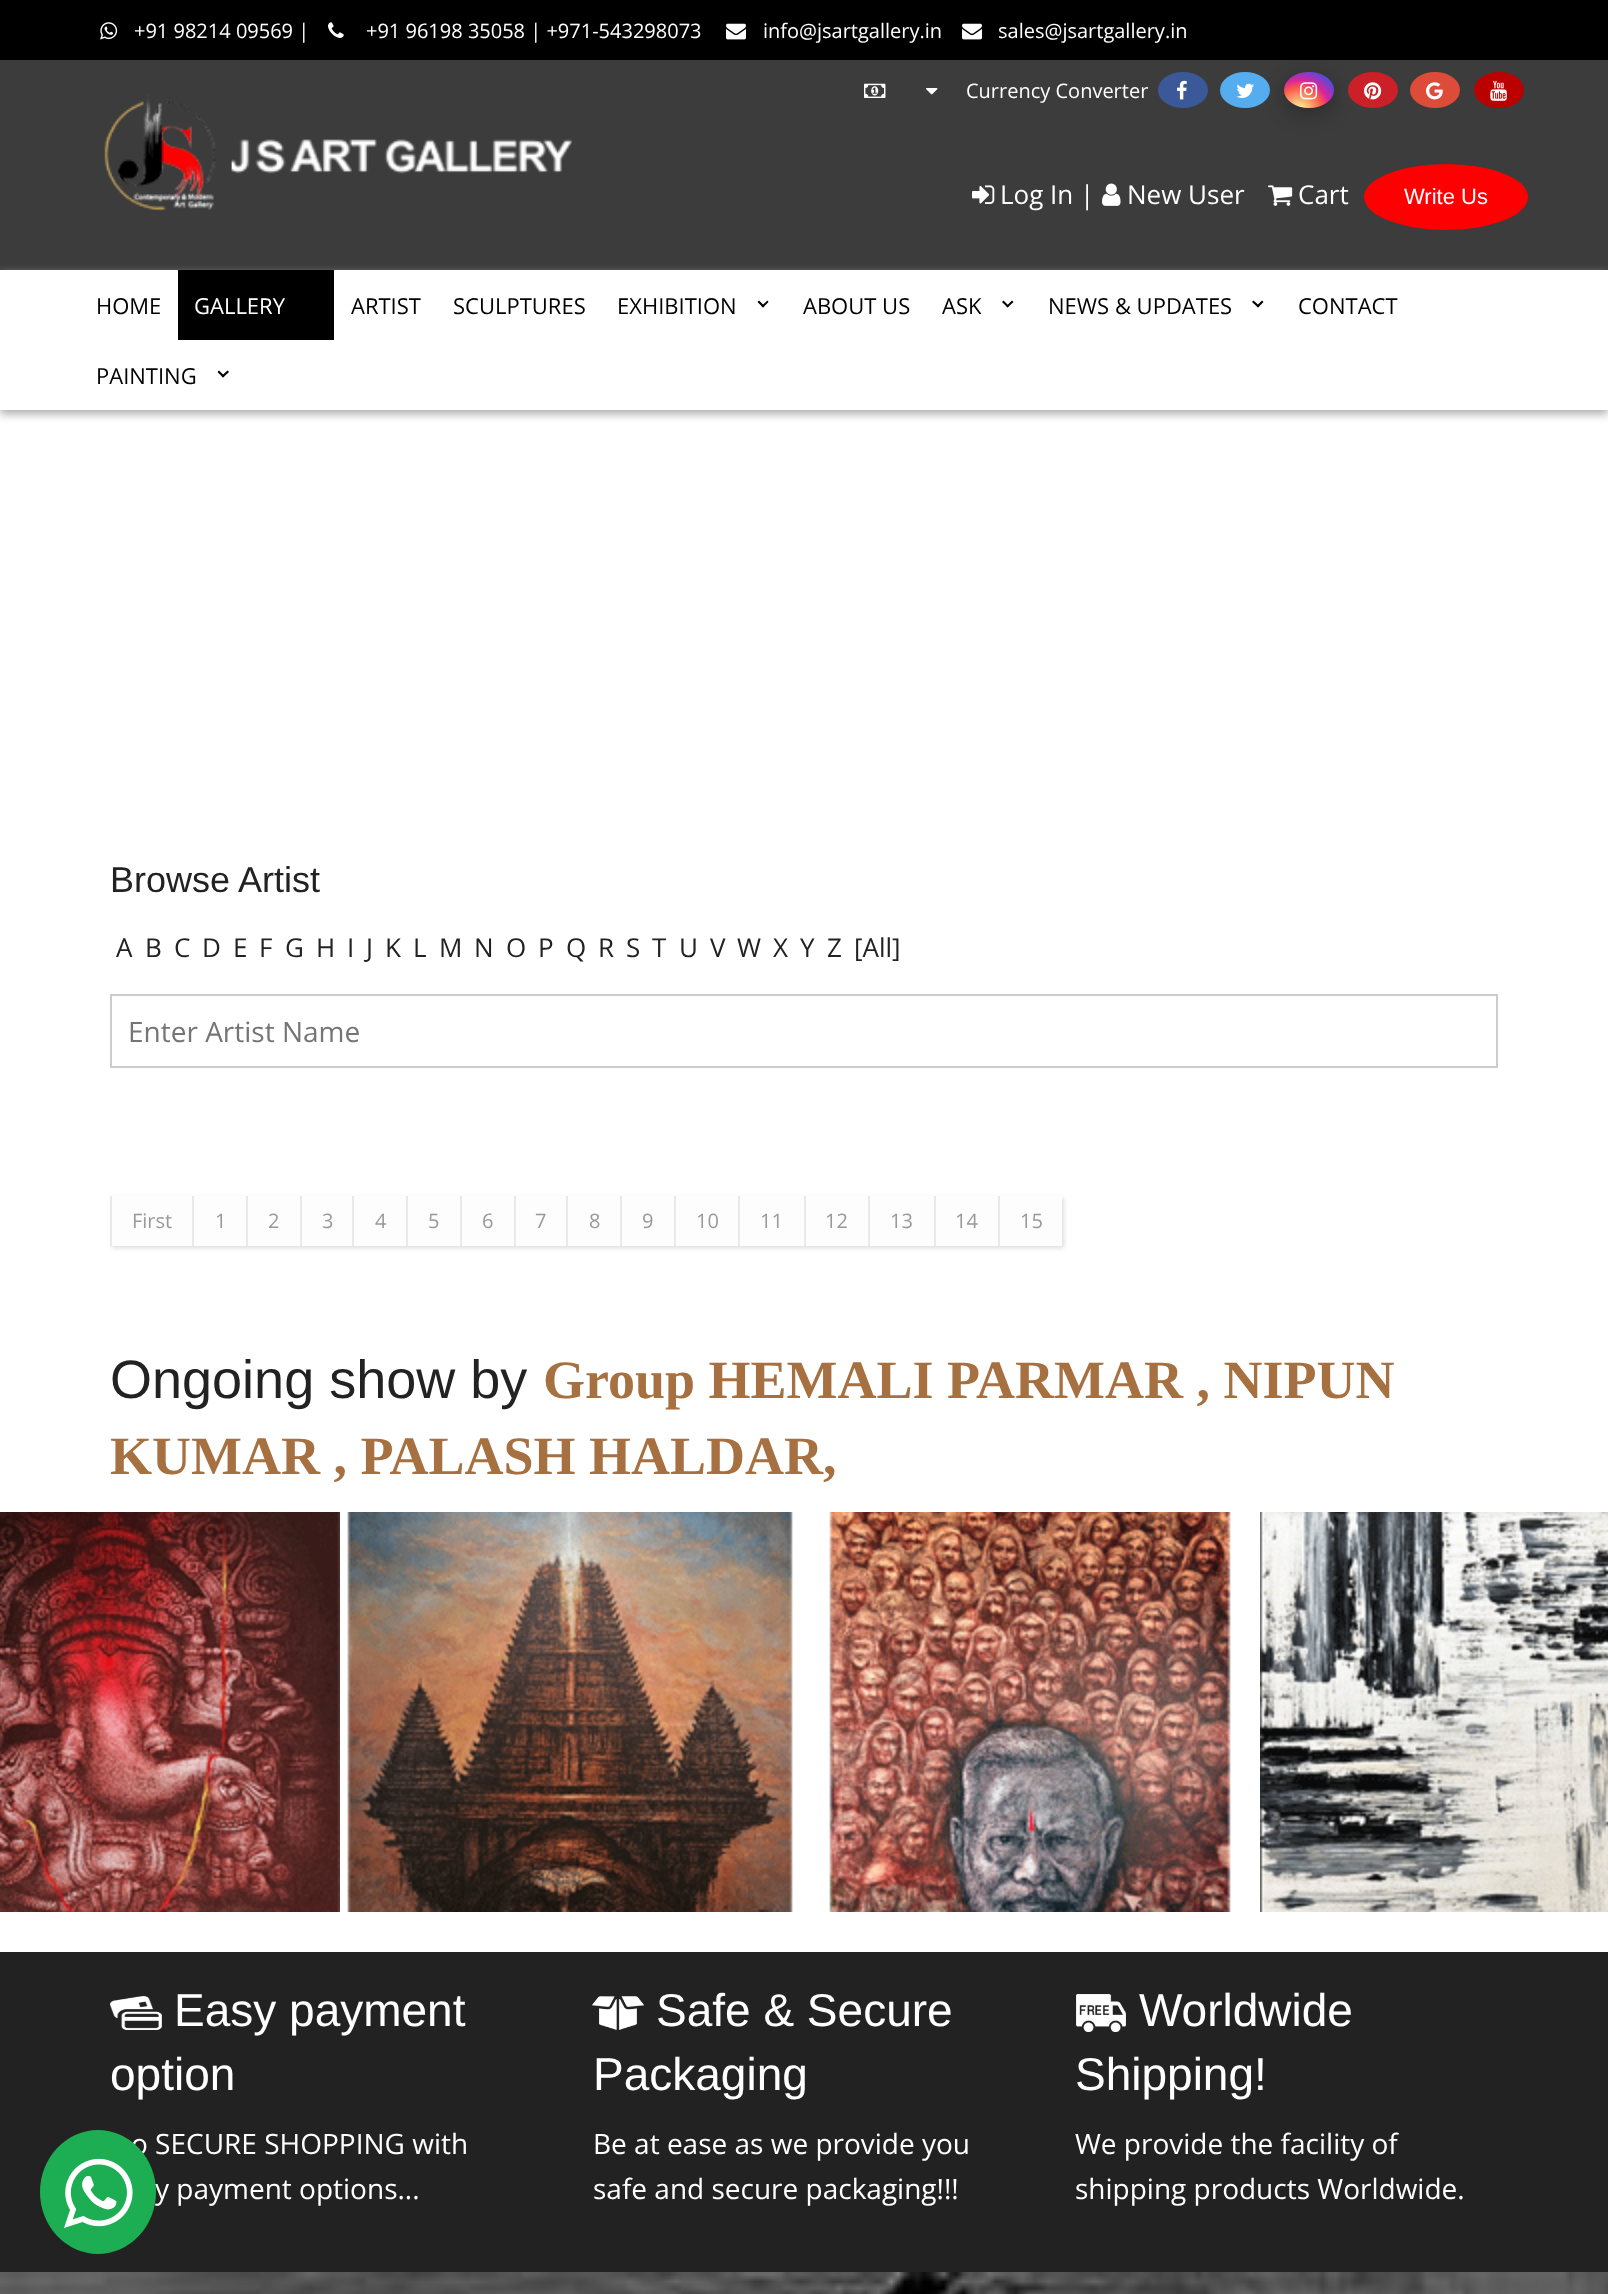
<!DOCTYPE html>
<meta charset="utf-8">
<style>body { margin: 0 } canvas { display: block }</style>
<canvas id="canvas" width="1608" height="2294"></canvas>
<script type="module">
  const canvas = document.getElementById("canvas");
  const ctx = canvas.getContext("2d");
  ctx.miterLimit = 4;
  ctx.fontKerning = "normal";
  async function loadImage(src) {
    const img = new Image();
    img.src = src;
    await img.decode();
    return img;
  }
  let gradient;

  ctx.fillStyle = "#ffffff";
  ctx.fillRect(0, 0, 1608, 2294);
  ctx.fillStyle = "#000000";
  ctx.fillRect(0, 0, 1608, 60);
  ctx.drawImage(await loadImage("img1.png"), 100, 22, 18, 18);
  ctx.font = "20px Open Sans";
  ctx.fillStyle = "#ffffff";
  ctx.fillText("+91 98214 09569 |", 134, 38);
  ctx.drawImage(await loadImage("img2.png"), 328, 22, 16, 16);
  ctx.fillText("+91 96198 35058 | +971-543298073", 366, 38);
  ctx.drawImage(await loadImage("img3.png"), 726, 23, 20, 17);
  ctx.fillText("info@jsartgallery.in", 763, 38);
  ctx.drawImage(await loadImage("img3.png"), 962, 23, 20, 17);
  ctx.fillText("sales@jsartgallery.in", 998, 38);
  ctx.fillStyle = "#3c3c3c";
  ctx.fillRect(0, 60, 1608, 210);
  ctx.drawImage(await loadImage("img4.png"), 864, 83, 22, 15);
  ctx.drawImage(await loadImage("img5.png"), 926, 88, 12, 7);
  ctx.fillStyle = "#ffffff";
  ctx.fillText("Currency Converter", 966, 98);
  ctx.fillStyle = "#3b5998";
  ctx.beginPath();
  ctx.ellipse(1183, 90, 25, 18, 0, 0, Math.PI * 2);
  ctx.fill();
  ctx.drawImage(await loadImage("img6.png"), 1177, 80, 10, 20);
  ctx.fillStyle = "#55acee";
  ctx.beginPath();
  ctx.ellipse(1245, 90, 25, 18, 0, 0, Math.PI * 2);
  ctx.fill();
  ctx.drawImage(await loadImage("img7.png"), 1236, 83, 18, 15);
  ctx.fillStyle = "rgba(0, 0, 0, 0.25)";
  ctx.filter = "blur(10px)";
  ctx.beginPath();
  ctx.roundRect(1284, 78, 50, 36, 18);
  ctx.fill();
  ctx.filter = "none";
  gradient = ctx.createRadialGradient(1299, 111, 0, 1299, 111, 52);
  gradient.addColorStop(0, "#fdf497");
  gradient.addColorStop(0.05, "#fdf497");
  gradient.addColorStop(0.45, "#fd5949");
  gradient.addColorStop(0.6, "#d6249f");
  gradient.addColorStop(0.9, "#285aeb");
  ctx.fillStyle = gradient;
  ctx.beginPath();
  ctx.ellipse(1309, 90, 25, 18, 0, 0, Math.PI * 2);
  ctx.fill();
  ctx.drawImage(await loadImage("img8.png"), 1300, 82, 18, 18);
  ctx.fillStyle = "#cb2027";
  ctx.beginPath();
  ctx.ellipse(1373, 90, 25, 18, 0, 0, Math.PI * 2);
  ctx.fill();
  ctx.drawImage(await loadImage("img9.png"), 1364, 82, 18, 18);
  ctx.fillStyle = "#dd4b39";
  ctx.beginPath();
  ctx.ellipse(1435, 90, 25, 18, 0, 0, Math.PI * 2);
  ctx.fill();
  ctx.drawImage(await loadImage("img10.png"), 1426, 82, 17, 18);
  ctx.fillStyle = "#bb0000";
  ctx.beginPath();
  ctx.ellipse(1499, 90, 25, 18, 0, 0, Math.PI * 2);
  ctx.fill();
  ctx.drawImage(await loadImage("img11.png"), 1490, 80, 17, 21);
  ctx.drawImage(await loadImage("img12.png"), 104, 94, 468, 117);
  ctx.drawImage(await loadImage("img13.png"), 972, 185, 23, 19);
  ctx.font = "26px Open Sans";
  ctx.fillStyle = "#ffffff";
  ctx.fillText("Log In |", 1000, 204);
  ctx.drawImage(await loadImage("img14.png"), 1102, 183, 19, 23);
  ctx.fillText("New User", 1127, 204);
  ctx.drawImage(await loadImage("img15.png"), 1268, 185, 25, 21);
  ctx.fillText("Cart", 1298, 204);
  ctx.fillStyle = "#fd0102";
  ctx.beginPath();
  ctx.ellipse(1446, 197, 82, 33, 0, 0, Math.PI * 2);
  ctx.fill();
  ctx.font = "22px Liberation Sans";
  ctx.fillStyle = "#ffffff";
  ctx.fillText("Write Us", 1404, 204);
  ctx.save();
  ctx.beginPath();
  ctx.moveTo(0, 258);
  ctx.lineTo(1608, 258);
  ctx.lineTo(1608, 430);
  ctx.lineTo(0, 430);
  ctx.closePath();
  ctx.moveTo(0, 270);
  ctx.lineTo(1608, 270);
  ctx.lineTo(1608, 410);
  ctx.lineTo(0, 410);
  ctx.closePath();
  ctx.clip("evenodd");
  ctx.fillStyle = "#aaaaaa";
  ctx.filter = "blur(5px)";
  ctx.beginPath();
  ctx.rect(0, 274, 1608, 140);
  ctx.fill();
  ctx.filter = "none";
  ctx.restore();
  ctx.font = "22px Open Sans";
  ctx.fillStyle = "#000000";
  ctx.fillText("HOME", 96, 314);
  ctx.fillRect(178, 270, 156, 70);
  ctx.fillStyle = "#ffffff";
  ctx.fillText("GALLERY", 194, 314);
  ctx.fillStyle = "#000000";
  ctx.fillText("ARTIST", 351, 314);
  ctx.fillText("SCULPTURES", 453, 314);
  ctx.fillText("EXHIBITION", 617, 314);
  ctx.beginPath();
  ctx.moveTo(767.5, 300.5);
  ctx.lineTo(768.5, 302);
  ctx.lineTo(763, 307.5);
  ctx.lineTo(761.5, 306);
  ctx.closePath();
  ctx.fill();
  ctx.beginPath();
  ctx.moveTo(759, 300.5);
  ctx.lineTo(764.5, 306);
  ctx.lineTo(763, 307.5);
  ctx.lineTo(757.5, 302);
  ctx.closePath();
  ctx.fill();
  ctx.fillText("ABOUT US", 803, 314);
  ctx.fillText("ASK", 942, 314);
  ctx.beginPath();
  ctx.moveTo(1012, 300.5);
  ctx.lineTo(1013.5, 302);
  ctx.lineTo(1007.5, 307.5);
  ctx.lineTo(1006.5, 306);
  ctx.closePath();
  ctx.fill();
  ctx.beginPath();
  ctx.moveTo(1003.5, 300.5);
  ctx.lineTo(1009, 306);
  ctx.lineTo(1007.5, 307.5);
  ctx.lineTo(1002, 302);
  ctx.closePath();
  ctx.fill();
  ctx.fillText("NEWS & UPDATES", 1048, 314);
  ctx.beginPath();
  ctx.moveTo(1262, 300.5);
  ctx.lineTo(1263.5, 302);
  ctx.lineTo(1258, 307.5);
  ctx.lineTo(1256.5, 306);
  ctx.closePath();
  ctx.fill();
  ctx.beginPath();
  ctx.moveTo(1253.5, 300.5);
  ctx.lineTo(1259.5, 306);
  ctx.lineTo(1258, 307.5);
  ctx.lineTo(1252, 302);
  ctx.closePath();
  ctx.fill();
  ctx.fillText("CONTACT", 1298, 314);
  ctx.fillText("PAINTING", 96, 384);
  ctx.beginPath();
  ctx.moveTo(227.5, 370.5);
  ctx.lineTo(229, 372);
  ctx.lineTo(223, 377.5);
  ctx.lineTo(221.5, 376);
  ctx.closePath();
  ctx.fill();
  ctx.beginPath();
  ctx.moveTo(219, 370.5);
  ctx.lineTo(224.5, 376);
  ctx.lineTo(223, 377.5);
  ctx.lineTo(217.5, 372);
  ctx.closePath();
  ctx.fill();
  ctx.font = "36px Liberation Sans";
  ctx.fillStyle = "#222222";
  ctx.fillText("Browse Artist", 110, 892);
  ctx.font = "26px Open Sans";
  ctx.fillText("A", 116, 957);
  ctx.fillText("B", 145, 957);
  ctx.fillText("C", 174, 957);
  ctx.fillText("D", 202, 957);
  ctx.fillText("E", 233, 957);
  ctx.fillText("F", 259, 957);
  ctx.fillText("G", 285, 957);
  ctx.fillText("H", 316, 957);
  ctx.fillText("I", 347, 957);
  ctx.fillText("J", 366, 957);
  ctx.fillText("K", 385, 957);
  ctx.fillText("L", 413, 957);
  ctx.fillText("M", 439, 957);
  ctx.fillText("N", 474, 957);
  ctx.fillText("O", 506, 957);
  ctx.fillText("P", 538, 957);
  ctx.fillText("Q", 566, 957);
  ctx.fillText("R", 598, 957);
  ctx.fillText("S", 626, 957);
  ctx.fillText("T", 652, 957);
  ctx.fillText("U", 679, 957);
  ctx.fillText("V", 710, 957);
  ctx.fillText("W", 737, 957);
  ctx.fillText("X", 773, 957);
  ctx.fillText("Y", 800, 957);
  ctx.fillText("Z", 827, 957);
  ctx.fillText("[All]", 854, 957);
  ctx.strokeStyle = "#cccccc";
  ctx.lineWidth = 2;
  ctx.strokeRect(111, 995, 1386, 72);
  ctx.font = "28px Open Sans";
  ctx.fillStyle = "#757575";
  ctx.fillText("Enter Artist Name", 128, 1042);
  ctx.fillStyle = "#dddddd";
  ctx.filter = "blur(2px)";
  ctx.beginPath();
  ctx.rect(112, 1198, 952, 50);
  ctx.fill();
  ctx.filter = "none";
  ctx.fillStyle = "#fdfdfd";
  ctx.fillRect(112, 1196, 80, 50);
  ctx.fillStyle = "#e9e9e9";
  ctx.fillRect(110, 1196, 2, 50);
  ctx.font = "20px Open Sans";
  ctx.fillStyle = "#999999";
  ctx.fillText("First", 132, 1228);
  ctx.fillStyle = "#fdfdfd";
  ctx.fillRect(194, 1196, 52, 50);
  ctx.fillStyle = "#e9e9e9";
  ctx.fillRect(192, 1196, 2, 50);
  ctx.fillStyle = "#999999";
  ctx.fillText("1", 215, 1228);
  ctx.fillStyle = "#fdfdfd";
  ctx.fillRect(248, 1196, 52, 50);
  ctx.fillStyle = "#e9e9e9";
  ctx.fillRect(246, 1196, 2, 50);
  ctx.fillStyle = "#999999";
  ctx.fillText("2", 268, 1228);
  ctx.fillStyle = "#fdfdfd";
  ctx.fillRect(302, 1196, 50, 50);
  ctx.fillStyle = "#e9e9e9";
  ctx.fillRect(300, 1196, 2, 50);
  ctx.fillStyle = "#999999";
  ctx.fillText("3", 322, 1228);
  ctx.fillStyle = "#fdfdfd";
  ctx.fillRect(354, 1196, 52, 50);
  ctx.fillStyle = "#e9e9e9";
  ctx.fillRect(352, 1196, 2, 50);
  ctx.fillStyle = "#999999";
  ctx.fillText("4", 375, 1228);
  ctx.fillStyle = "#fdfdfd";
  ctx.fillRect(408, 1196, 52, 50);
  ctx.fillStyle = "#e9e9e9";
  ctx.fillRect(406, 1196, 2, 50);
  ctx.fillStyle = "#999999";
  ctx.fillText("5", 428, 1228);
  ctx.fillStyle = "#fdfdfd";
  ctx.fillRect(462, 1196, 52, 50);
  ctx.fillStyle = "#e9e9e9";
  ctx.fillRect(460, 1196, 2, 50);
  ctx.fillStyle = "#999999";
  ctx.fillText("6", 482, 1228);
  ctx.fillStyle = "#fdfdfd";
  ctx.fillRect(516, 1196, 50, 50);
  ctx.fillStyle = "#e9e9e9";
  ctx.fillRect(514, 1196, 2, 50);
  ctx.fillStyle = "#999999";
  ctx.fillText("7", 535, 1228);
  ctx.fillStyle = "#fdfdfd";
  ctx.fillRect(568, 1196, 52, 50);
  ctx.fillStyle = "#e9e9e9";
  ctx.fillRect(566, 1196, 2, 50);
  ctx.fillStyle = "#999999";
  ctx.fillText("8", 589, 1228);
  ctx.fillStyle = "#fdfdfd";
  ctx.fillRect(622, 1196, 52, 50);
  ctx.fillStyle = "#e9e9e9";
  ctx.fillRect(620, 1196, 2, 50);
  ctx.fillStyle = "#999999";
  ctx.fillText("9", 642, 1228);
  ctx.fillStyle = "#fdfdfd";
  ctx.fillRect(676, 1196, 62, 50);
  ctx.fillStyle = "#e9e9e9";
  ctx.fillRect(674, 1196, 2, 50);
  ctx.fillStyle = "#999999";
  ctx.fillText("10", 696, 1228);
  ctx.fillStyle = "#fdfdfd";
  ctx.fillRect(740, 1196, 64, 50);
  ctx.fillStyle = "#e9e9e9";
  ctx.fillRect(738, 1196, 2, 50);
  ctx.fillStyle = "#999999";
  ctx.fillText("11", 760, 1228);
  ctx.fillStyle = "#fdfdfd";
  ctx.fillRect(806, 1196, 62, 50);
  ctx.fillStyle = "#e9e9e9";
  ctx.fillRect(804, 1196, 2, 50);
  ctx.fillStyle = "#999999";
  ctx.fillText("12", 825, 1228);
  ctx.fillStyle = "#fdfdfd";
  ctx.fillRect(870, 1196, 64, 50);
  ctx.fillStyle = "#e9e9e9";
  ctx.fillRect(868, 1196, 2, 50);
  ctx.fillStyle = "#999999";
  ctx.fillText("13", 890, 1228);
  ctx.fillStyle = "#fdfdfd";
  ctx.fillRect(936, 1196, 62, 50);
  ctx.fillStyle = "#e9e9e9";
  ctx.fillRect(934, 1196, 2, 50);
  ctx.fillStyle = "#999999";
  ctx.fillText("14", 955, 1228);
  ctx.fillStyle = "#fdfdfd";
  ctx.fillRect(1000, 1196, 62, 50);
  ctx.fillStyle = "#e9e9e9";
  ctx.fillRect(998, 1196, 2, 50);
  ctx.fillStyle = "#999999";
  ctx.fillText("15", 1020, 1228);
  ctx.font = "54px Liberation Sans";
  ctx.fillStyle = "#222222";
  ctx.fillText("Ongoing show by", 110, 1398);
  ctx.font = "bold 54px Liberation Serif";
  ctx.fillStyle = "#a67040";
  ctx.fillText("Group HEMALI PARMAR , NIPUN", 543, 1398);
  ctx.fillText("KUMAR , PALASH HALDAR,", 110, 1474);
  ctx.drawImage(await loadImage("img16.png"), 0, 1512, 340, 400);
  ctx.drawImage(await loadImage("img17.png"), 347, 1512, 446, 400);
  ctx.drawImage(await loadImage("img18.png"), 829, 1512, 402, 400);
  ctx.drawImage(await loadImage("img19.png"), 1260, 1512, 348, 400);
  ctx.fillStyle = "#222222";
  ctx.fillRect(0, 1952, 1608, 320);
  ctx.drawImage(await loadImage("img20.png"), 110, 1996, 52, 34);
  ctx.font = "46px Liberation Sans";
  ctx.fillStyle = "#ffffff";
  ctx.fillText("Easy payment", 174, 2026);
  ctx.fillText("option", 110, 2090);
  ctx.font = "28px Open Sans";
  ctx.fillText("o SECURE SHOPPING with", 131, 2154);
  ctx.fillText("y payment options...", 155, 2199);
  ctx.drawImage(await loadImage("img21.png"), 592, 1996, 52, 34);
  ctx.font = "46px Liberation Sans";
  ctx.fillText("Safe & Secure", 656, 2026);
  ctx.fillText("Packaging", 593, 2090);
  ctx.font = "28px Open Sans";
  ctx.fillText("Be at ease as we provide you", 593, 2154);
  ctx.fillText("safe and secure packaging!!!", 593, 2199);
  ctx.drawImage(await loadImage("img22.png"), 1076, 1994, 50, 38);
  ctx.font = "46px Liberation Sans";
  ctx.fillText("Worldwide", 1139, 2026);
  ctx.fillText("Shipping!", 1075, 2090);
  ctx.font = "28px Open Sans";
  ctx.fillText("We provide the facility of", 1075, 2154);
  ctx.fillText("shipping products Worldwide.", 1075, 2199);
  ctx.drawImage(await loadImage("img23.png"), 0, 2272, 1608, 22);
  ctx.fillStyle = "#1dad53";
  ctx.beginPath();
  ctx.ellipse(98, 2192, 58, 62, 0, 0, Math.PI * 2);
  ctx.fill();
  ctx.drawImage(await loadImage("img24.png"), 64, 2158, 69, 70);
</script>
